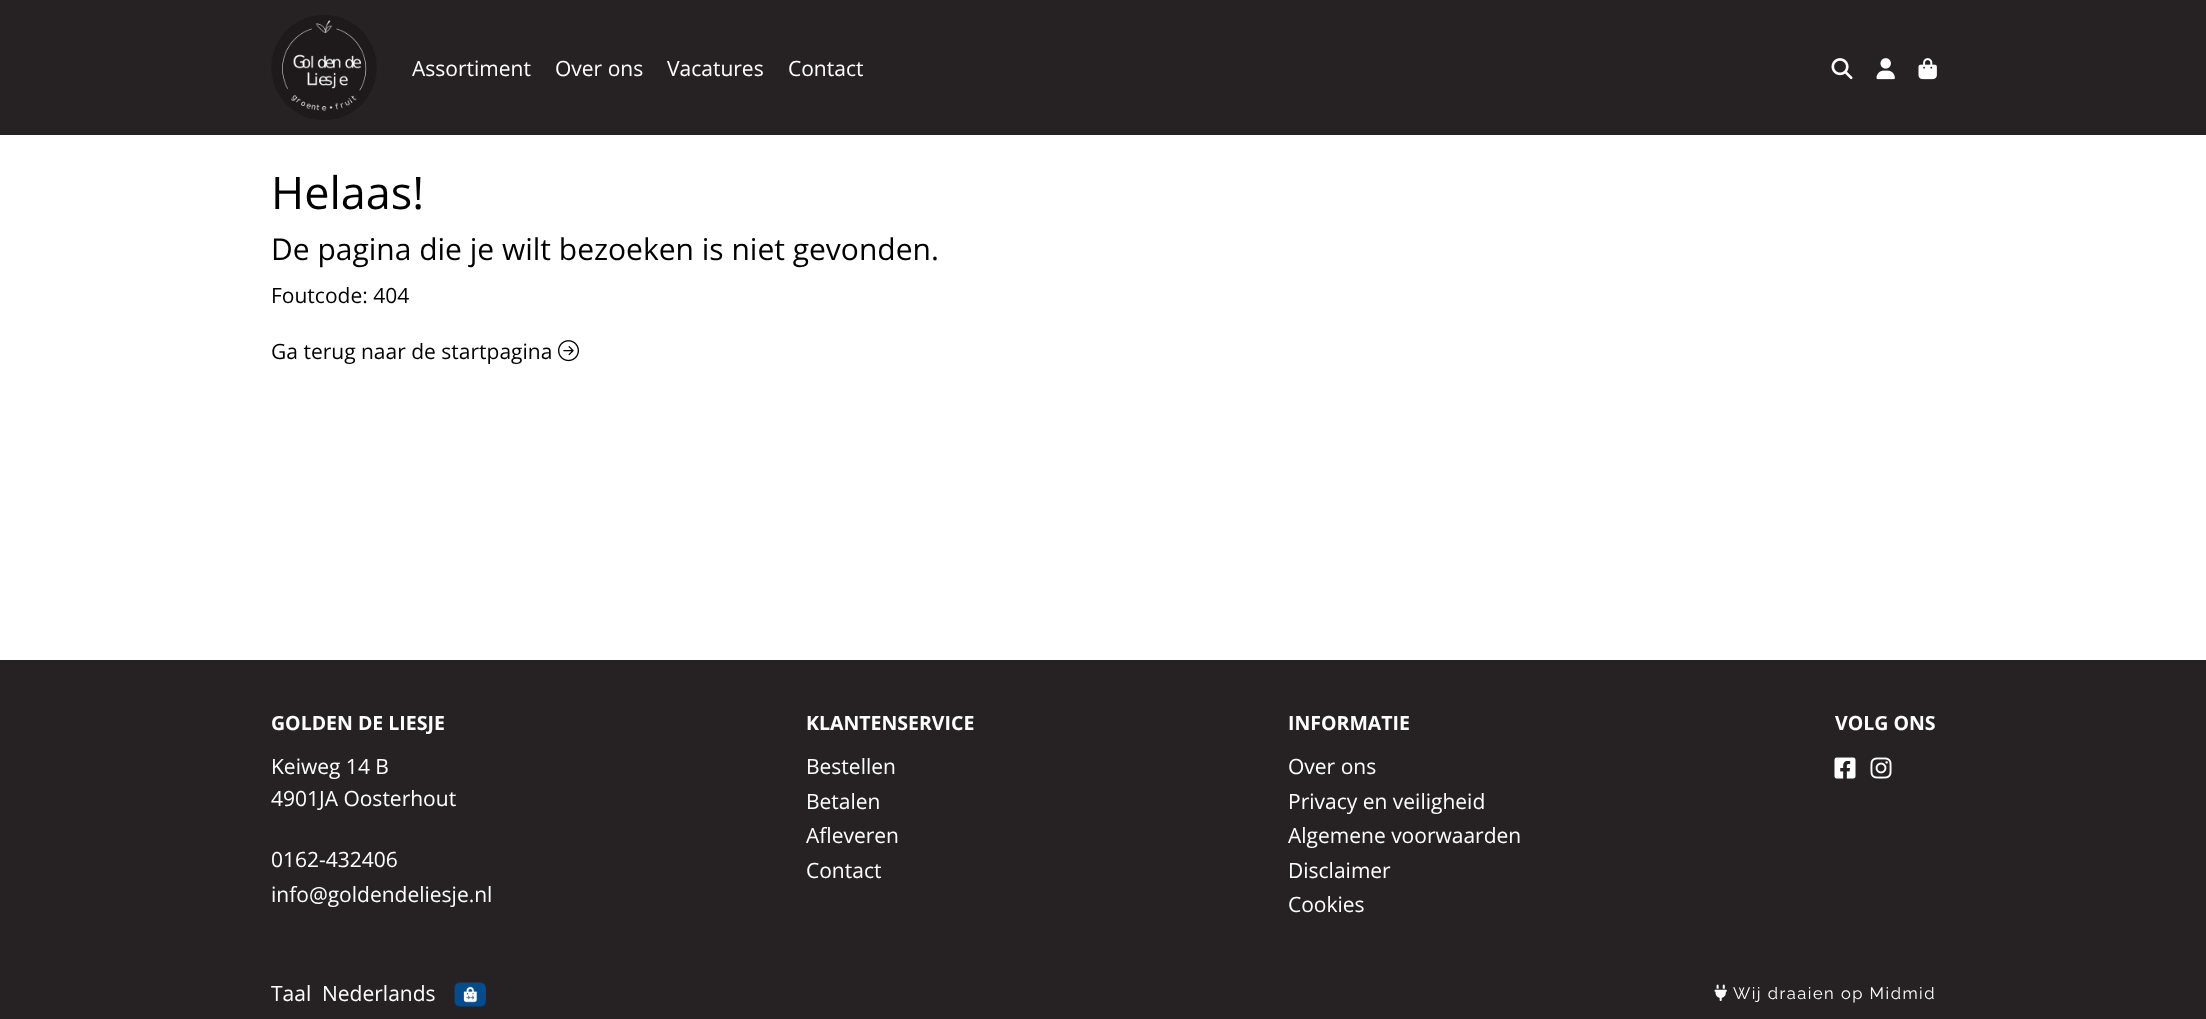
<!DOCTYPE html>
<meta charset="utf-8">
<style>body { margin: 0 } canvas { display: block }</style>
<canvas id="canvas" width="2206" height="1019"></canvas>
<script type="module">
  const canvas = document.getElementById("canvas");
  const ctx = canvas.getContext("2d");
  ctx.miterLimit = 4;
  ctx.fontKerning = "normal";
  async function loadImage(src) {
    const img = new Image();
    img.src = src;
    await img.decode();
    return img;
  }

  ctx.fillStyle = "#ffffff";
  ctx.fillRect(0, 0, 2206, 1019);
  ctx.fillStyle = "#262223";
  ctx.fillRect(0, 0, 2206, 135);
  ctx.drawImage(await loadImage("img1.png"), 271, 15, 106, 105);
  ctx.font = "21px Open Sans";
  ctx.fillStyle = "#ffffff";
  ctx.fillText("Assortiment", 412, 76);
  ctx.fillText("Over ons", 555, 76);
  ctx.fillText("Vacatures", 667, 76);
  ctx.fillText("Contact", 788, 76);
  ctx.drawImage(await loadImage("img2.png"), 1831, 58, 22, 22);
  ctx.drawImage(await loadImage("img3.png"), 1876, 58, 19, 22);
  ctx.drawImage(await loadImage("img4.png"), 1918, 58, 19, 22);
  ctx.font = "45px Open Sans";
  ctx.fillStyle = "#000000";
  ctx.fillText("Helaas!", 271, 209);
  ctx.font = "30px Open Sans";
  ctx.fillText("De pagina die je wilt bezoeken is niet gevonden.", 271, 260);
  ctx.font = "21px Open Sans";
  ctx.fillText("Foutcode: 404", 271, 303);
  ctx.fillText("Ga terug naar de startpagina", 271, 359);
  ctx.drawImage(await loadImage("img5.png"), 558, 340, 21, 22);
  ctx.fillStyle = "#262223";
  ctx.fillRect(0, 660, 2206, 359);
  ctx.font = "bold 19.5px Open Sans";
  ctx.fillStyle = "#ffffff";
  ctx.fillText("GOLDEN DE LIESJE", 271, 730);
  ctx.font = "21px Open Sans";
  ctx.fillText("Keiweg 14 B", 271, 774);
  ctx.fillText("4901JA Oosterhout", 271, 806);
  ctx.fillText("0162-432406", 271, 867);
  ctx.fillText("info@goldendeliesje.nl", 271, 902);
  ctx.font = "bold 19.5px Open Sans";
  ctx.fillText("KLANTENSERVICE", 806, 730);
  ctx.font = "21px Open Sans";
  ctx.fillText("Bestellen", 806, 774);
  ctx.fillText("Betalen", 806, 809);
  ctx.fillText("Afleveren", 806, 843);
  ctx.fillText("Contact", 806, 878);
  ctx.font = "bold 19.5px Open Sans";
  ctx.fillText("INFORMATIE", 1288, 730);
  ctx.font = "21px Open Sans";
  ctx.fillText("Over ons", 1288, 774);
  ctx.fillText("Privacy en veiligheid", 1288, 809);
  ctx.fillText("Algemene voorwaarden", 1288, 843);
  ctx.fillText("Disclaimer", 1288, 878);
  ctx.fillText("Cookies", 1288, 912);
  ctx.font = "bold 19.5px Open Sans";
  ctx.fillText("VOLG ONS", 1835, 730);
  ctx.drawImage(await loadImage("img6.png"), 1834, 757, 22, 22);
  ctx.drawImage(await loadImage("img7.png"), 1870, 757, 22, 22);
  ctx.font = "21px Open Sans";
  ctx.fillText("Taal", 271, 1001);
  ctx.fillText("Nederlands", 322, 1001);
  ctx.drawImage(await loadImage("img8.png"), 454, 982, 32, 25);
  ctx.drawImage(await loadImage("img9.png"), 1714, 984, 13, 17);
  ctx.letterSpacing = "1.5px";
  ctx.font = "16.5px Raleway";
  ctx.fillText("Wij draaien op Midmid", 1733, 999);
</script>
